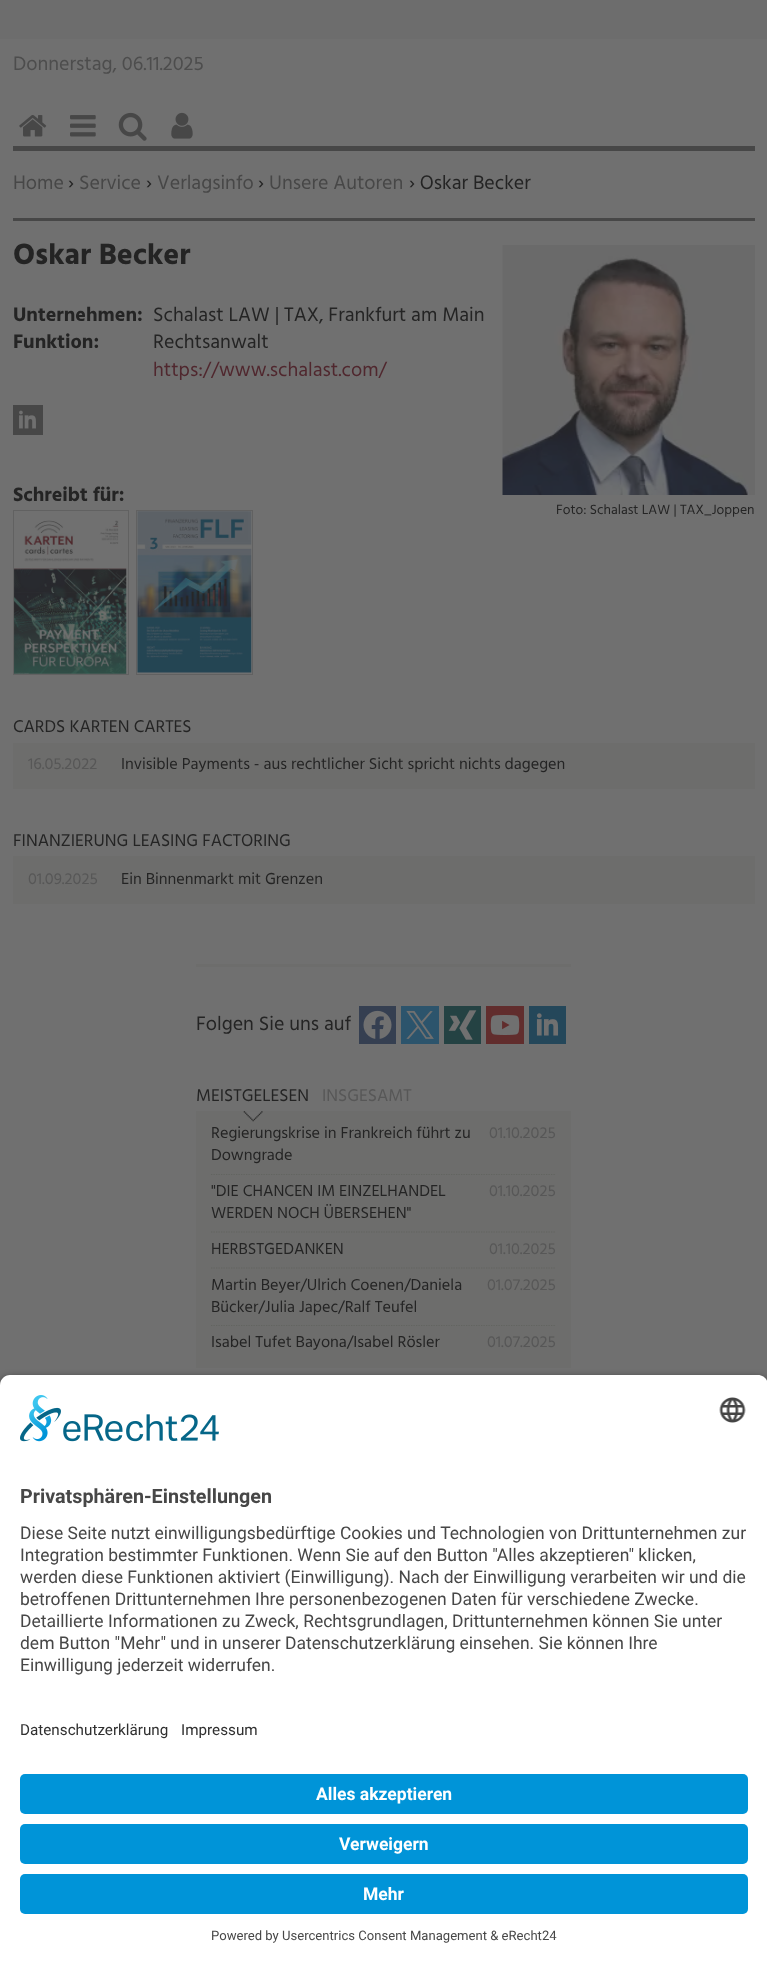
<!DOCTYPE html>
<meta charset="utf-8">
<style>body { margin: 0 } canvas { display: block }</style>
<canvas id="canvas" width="767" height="1963"></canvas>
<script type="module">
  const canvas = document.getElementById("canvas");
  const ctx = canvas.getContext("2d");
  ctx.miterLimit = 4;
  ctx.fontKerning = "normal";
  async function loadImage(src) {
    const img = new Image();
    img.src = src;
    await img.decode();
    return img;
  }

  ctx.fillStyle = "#6d6d6d";
  ctx.fillRect(0, 0, 767, 1963);
  ctx.fillStyle = "#707070";
  ctx.fillRect(0, 39, 767, 1346);
  ctx.font = "20px Hind";
  ctx.fillStyle = "#4d4d4d";
  ctx.fillText("Donnerstag, 06.11.2025", 13, 70);
  ctx.fillStyle = "#474747";
  ctx.fillRect(13, 146, 742, 5);
  ctx.drawImage(await loadImage("img1.png"), 19, 115, 28, 22);
  ctx.drawImage(await loadImage("img2.png"), 70, 115, 26, 22);
  ctx.drawImage(await loadImage("img3.png"), 118, 112, 29, 29);
  ctx.drawImage(await loadImage("img4.png"), 171, 112, 22, 27);
  ctx.fillText("Home", 13, 189);
  ctx.fillStyle = "#242424";
  ctx.fillText("›", 68, 189);
  ctx.fillStyle = "#474747";
  ctx.fillText("Service", 79, 189);
  ctx.fillStyle = "#242424";
  ctx.fillText("›", 146, 189);
  ctx.fillStyle = "#474747";
  ctx.fillText("Verlagsinfo", 157, 189);
  ctx.fillStyle = "#242424";
  ctx.fillText("›", 258, 189);
  ctx.fillStyle = "#474747";
  ctx.fillText("Unsere Autoren", 269, 189);
  ctx.fillStyle = "#242424";
  ctx.fillText("› Oskar Becker", 409, 189);
  ctx.fillStyle = "#474747";
  ctx.fillRect(13, 218, 742, 3);
  ctx.font = "bold 30px Hind";
  ctx.fillStyle = "#242424";
  ctx.fillText("Oskar Becker", 13, 264);
  ctx.font = "bold 20px Hind";
  ctx.fillText("Unternehmen:", 13, 321);
  ctx.font = "20px Hind";
  ctx.fillText("Schalast LAW | TAX, Frankfurt am Main", 153, 321);
  ctx.font = "bold 20px Hind";
  ctx.fillText("Funktion:", 13, 348);
  ctx.font = "20px Hind";
  ctx.fillText("Rechtsanwalt", 153, 348);
  ctx.fillStyle = "#50272e";
  ctx.fillText("https://www.schalast.com/", 153, 376);
  ctx.fillStyle = "#474747";
  ctx.fillRect(13, 405, 30, 30);
  ctx.drawImage(await loadImage("img5.png"), 19, 410, 17, 19);
  ctx.drawImage(await loadImage("img6.png"), 502, 245, 253, 250);
  ctx.font = "13.75px Hind";
  ctx.fillStyle = "#242424";
  ctx.fillText("Foto: Schalast LAW | TAX_Joppen", 556, 514);
  ctx.font = "bold 20px Hind";
  ctx.fillText("Schreibt für:", 13, 501);
  ctx.drawImage(await loadImage("img7.png"), 14, 520, 113, 154);
  ctx.strokeStyle = "#616161";
  ctx.strokeRect(13.5, 510.5, 115, 164);
  ctx.drawImage(await loadImage("img8.png"), 137, 511, 115, 162);
  ctx.strokeRect(136.5, 510.5, 116, 164);
  ctx.font = "17.5px Hind";
  ctx.fillText("CARDS KARTEN CARTES", 13, 732);
  ctx.fillStyle = "#6d6d6c";
  ctx.fillRect(13, 743, 742, 46);
  ctx.font = "16.25px Hind";
  ctx.fillStyle = "#575757";
  ctx.fillText("16.05.2022", 28, 769);
  ctx.fillStyle = "#242424";
  ctx.fillText("Invisible Payments - aus rechtlicher Sicht spricht nichts dagegen", 121, 769);
  ctx.font = "17.5px Hind";
  ctx.fillText("FINANZIERUNG LEASING FACTORING", 13, 846);
  ctx.fillStyle = "#6d6d6c";
  ctx.fillRect(13, 856, 742, 48);
  ctx.font = "16.25px Hind";
  ctx.fillStyle = "#575757";
  ctx.fillText("01.09.2025", 28, 884);
  ctx.fillStyle = "#242424";
  ctx.fillText("Ein Binnenmarkt mit Grenzen", 121, 884);
  ctx.fillStyle = "#6d6d6c";
  ctx.fillRect(196, 964, 375, 3);
  ctx.font = "20px Hind";
  ctx.fillStyle = "#242424";
  ctx.fillText("Folgen Sie uns auf", 196, 1030);
  ctx.fillStyle = "#353f51";
  ctx.fillRect(359, 1006, 37, 38);
  ctx.drawImage(await loadImage("img9.png"), 363, 1010, 29, 29);
  ctx.fillStyle = "#2c546c";
  ctx.fillRect(401, 1006, 38, 38);
  ctx.drawImage(await loadImage("img10.png"), 406, 1010, 28, 29);
  ctx.fillStyle = "#244243";
  ctx.fillRect(444, 1006, 37, 38);
  ctx.drawImage(await loadImage("img11.png"), 448, 1010, 29, 30);
  ctx.fillStyle = "#612d2d";
  ctx.fillRect(486, 1006, 38, 38);
  ctx.drawImage(await loadImage("img12.png"), 490, 1015, 30, 20);
  ctx.fillStyle = "#24475a";
  ctx.fillRect(529, 1006, 37, 38);
  ctx.drawImage(await loadImage("img13.png"), 536, 1013, 23, 23);
  ctx.fillStyle = "#6d6d6c";
  ctx.fillRect(196, 1111, 375, 257);
  ctx.drawImage(await loadImage("img14.png"), 243, 1111, 20, 11);
  ctx.font = "17.5px Hind";
  ctx.fillStyle = "#242424";
  ctx.fillText("MEISTGELESEN", 196, 1101);
  ctx.fillStyle = "#575757";
  ctx.fillText("INSGESAMT", 322, 1101);
  ctx.beginPath();
  ctx.moveTo(211, 1174.5);
  ctx.lineTo(556, 1174.5);
  ctx.strokeStyle = "#62645f";
  ctx.lineWidth = 1.2;
  ctx.setLineDash([1.25, 1.25]);
  ctx.stroke();
  ctx.font = "16.25px Hind";
  ctx.fillStyle = "#242424";
  ctx.fillText("Regierungskrise in Frankreich führt zu", 211, 1138);
  ctx.fillText("Downgrade", 211, 1160);
  ctx.fillStyle = "#575757";
  ctx.fillText("01.10.2025", 489, 1138);
  ctx.beginPath();
  ctx.moveTo(211, 1232);
  ctx.lineTo(556, 1232);
  ctx.stroke();
  ctx.fillStyle = "#242424";
  ctx.fillText("\"DIE CHANCEN IM EINZELHANDEL", 211, 1196);
  ctx.fillText("WERDEN NOCH ÜBERSEHEN\"", 211, 1218);
  ctx.fillStyle = "#575757";
  ctx.fillText("01.10.2025", 489, 1196);
  ctx.beginPath();
  ctx.moveTo(211, 1268);
  ctx.lineTo(556, 1268);
  ctx.stroke();
  ctx.fillStyle = "#242424";
  ctx.fillText("HERBSTGEDANKEN", 211, 1254);
  ctx.fillStyle = "#575757";
  ctx.fillText("01.10.2025", 489, 1254);
  ctx.beginPath();
  ctx.moveTo(211, 1325.5);
  ctx.lineTo(556, 1325.5);
  ctx.stroke();
  ctx.fillStyle = "#242424";
  ctx.fillText("Martin Beyer/Ulrich Coenen/Daniela", 211, 1290);
  ctx.fillText("Bücker/Julia Japec/Ralf Teufel", 211, 1312);
  ctx.fillStyle = "#575757";
  ctx.fillText("01.07.2025", 487, 1290);
  ctx.fillStyle = "#242424";
  ctx.fillText("Isabel Tufet Bayona/Isabel Rösler", 211, 1347);
  ctx.fillStyle = "#575757";
  ctx.fillText("01.07.2025", 487, 1347);
  ctx.fillStyle = "rgba(0, 0, 0, 0.8)";
  ctx.filter = "blur(4.5px)";
  ctx.beginPath();
  ctx.roundRect(0, 1379, 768, 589, 10);
  ctx.fill();
  ctx.filter = "none";
  ctx.fillStyle = "#ffffff";
  ctx.beginPath();
  ctx.moveTo(10, 1375);
  ctx.lineTo(758, 1375);
  ctx.bezierCurveTo(763.5, 1375, 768, 1379.5, 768, 1385);
  ctx.lineTo(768, 1701);
  ctx.lineTo(0, 1701);
  ctx.lineTo(0, 1385);
  ctx.bezierCurveTo(0, 1379.5, 4.5, 1375, 10, 1375);
  ctx.closePath();
  ctx.fill();
  ctx.drawImage(await loadImage("img15.png"), 20, 1395, 199, 47);
  ctx.drawImage(await loadImage("img16.png"), 719, 1397, 27, 26);
  ctx.font = "bold 19.75px Roboto";
  ctx.fillStyle = "#474747";
  ctx.fillText("Privatsphären-Einstellungen", 20, 1503);
  ctx.font = "17.5px Roboto";
  ctx.fillText("Diese Seite nutzt einwilligungsbedürftige Cookies und Technologien von Drittunternehmen zur", 20, 1539);
  ctx.fillText("Integration bestimmter Funktionen. Wenn Sie auf den Button \"Alles akzeptieren\" klicken,", 20, 1561);
  ctx.fillText("werden diese Funktionen aktiviert (Einwilligung). Nach der Einwilligung verarbeiten wir und die", 20, 1583);
  ctx.fillText("betroffenen Drittunternehmen Ihre personenbezogenen Daten für verschiedene Zwecke.", 20, 1605);
  ctx.fillText("Detaillierte Informationen zu Zweck, Rechtsgrundlagen, Drittunternehmen können Sie unter", 20, 1627);
  ctx.fillText("dem Button \"Mehr\" und in unserer Datenschutzerklärung einsehen. Sie können Ihre", 20, 1649);
  ctx.fillText("Einwilligung jederzeit widerrufen.", 20, 1671);
  ctx.fillStyle = "#ffffff";
  ctx.fillRect(0, 1701, 767, 262);
  ctx.font = "15.25px Roboto";
  ctx.fillStyle = "#303030";
  ctx.fillText("Datenschutzerklärung", 20, 1735);
  ctx.fillText("Impressum", 181, 1735);
  ctx.fillStyle = "#0094d8";
  ctx.beginPath();
  ctx.roundRect(20, 1774, 728, 40, 5);
  ctx.fill();
  ctx.font = "bold 17.5px Roboto";
  ctx.fillStyle = "#ffffff";
  ctx.fillText("Alles akzeptieren", 316, 1800);
  ctx.fillStyle = "#0094d8";
  ctx.beginPath();
  ctx.roundRect(20, 1824, 728, 40, 5);
  ctx.fill();
  ctx.fillStyle = "#ffffff";
  ctx.fillText("Verweigern", 339, 1850);
  ctx.fillStyle = "#0094d8";
  ctx.beginPath();
  ctx.roundRect(20, 1874, 728, 40, 5);
  ctx.fill();
  ctx.fillStyle = "#ffffff";
  ctx.fillText("Mehr", 363, 1900);
  ctx.font = "13.1px Roboto";
  ctx.fillStyle = "#474747";
  ctx.fillText("Powered by Usercentrics Consent Management & eRecht24", 211, 1940);
</script>
